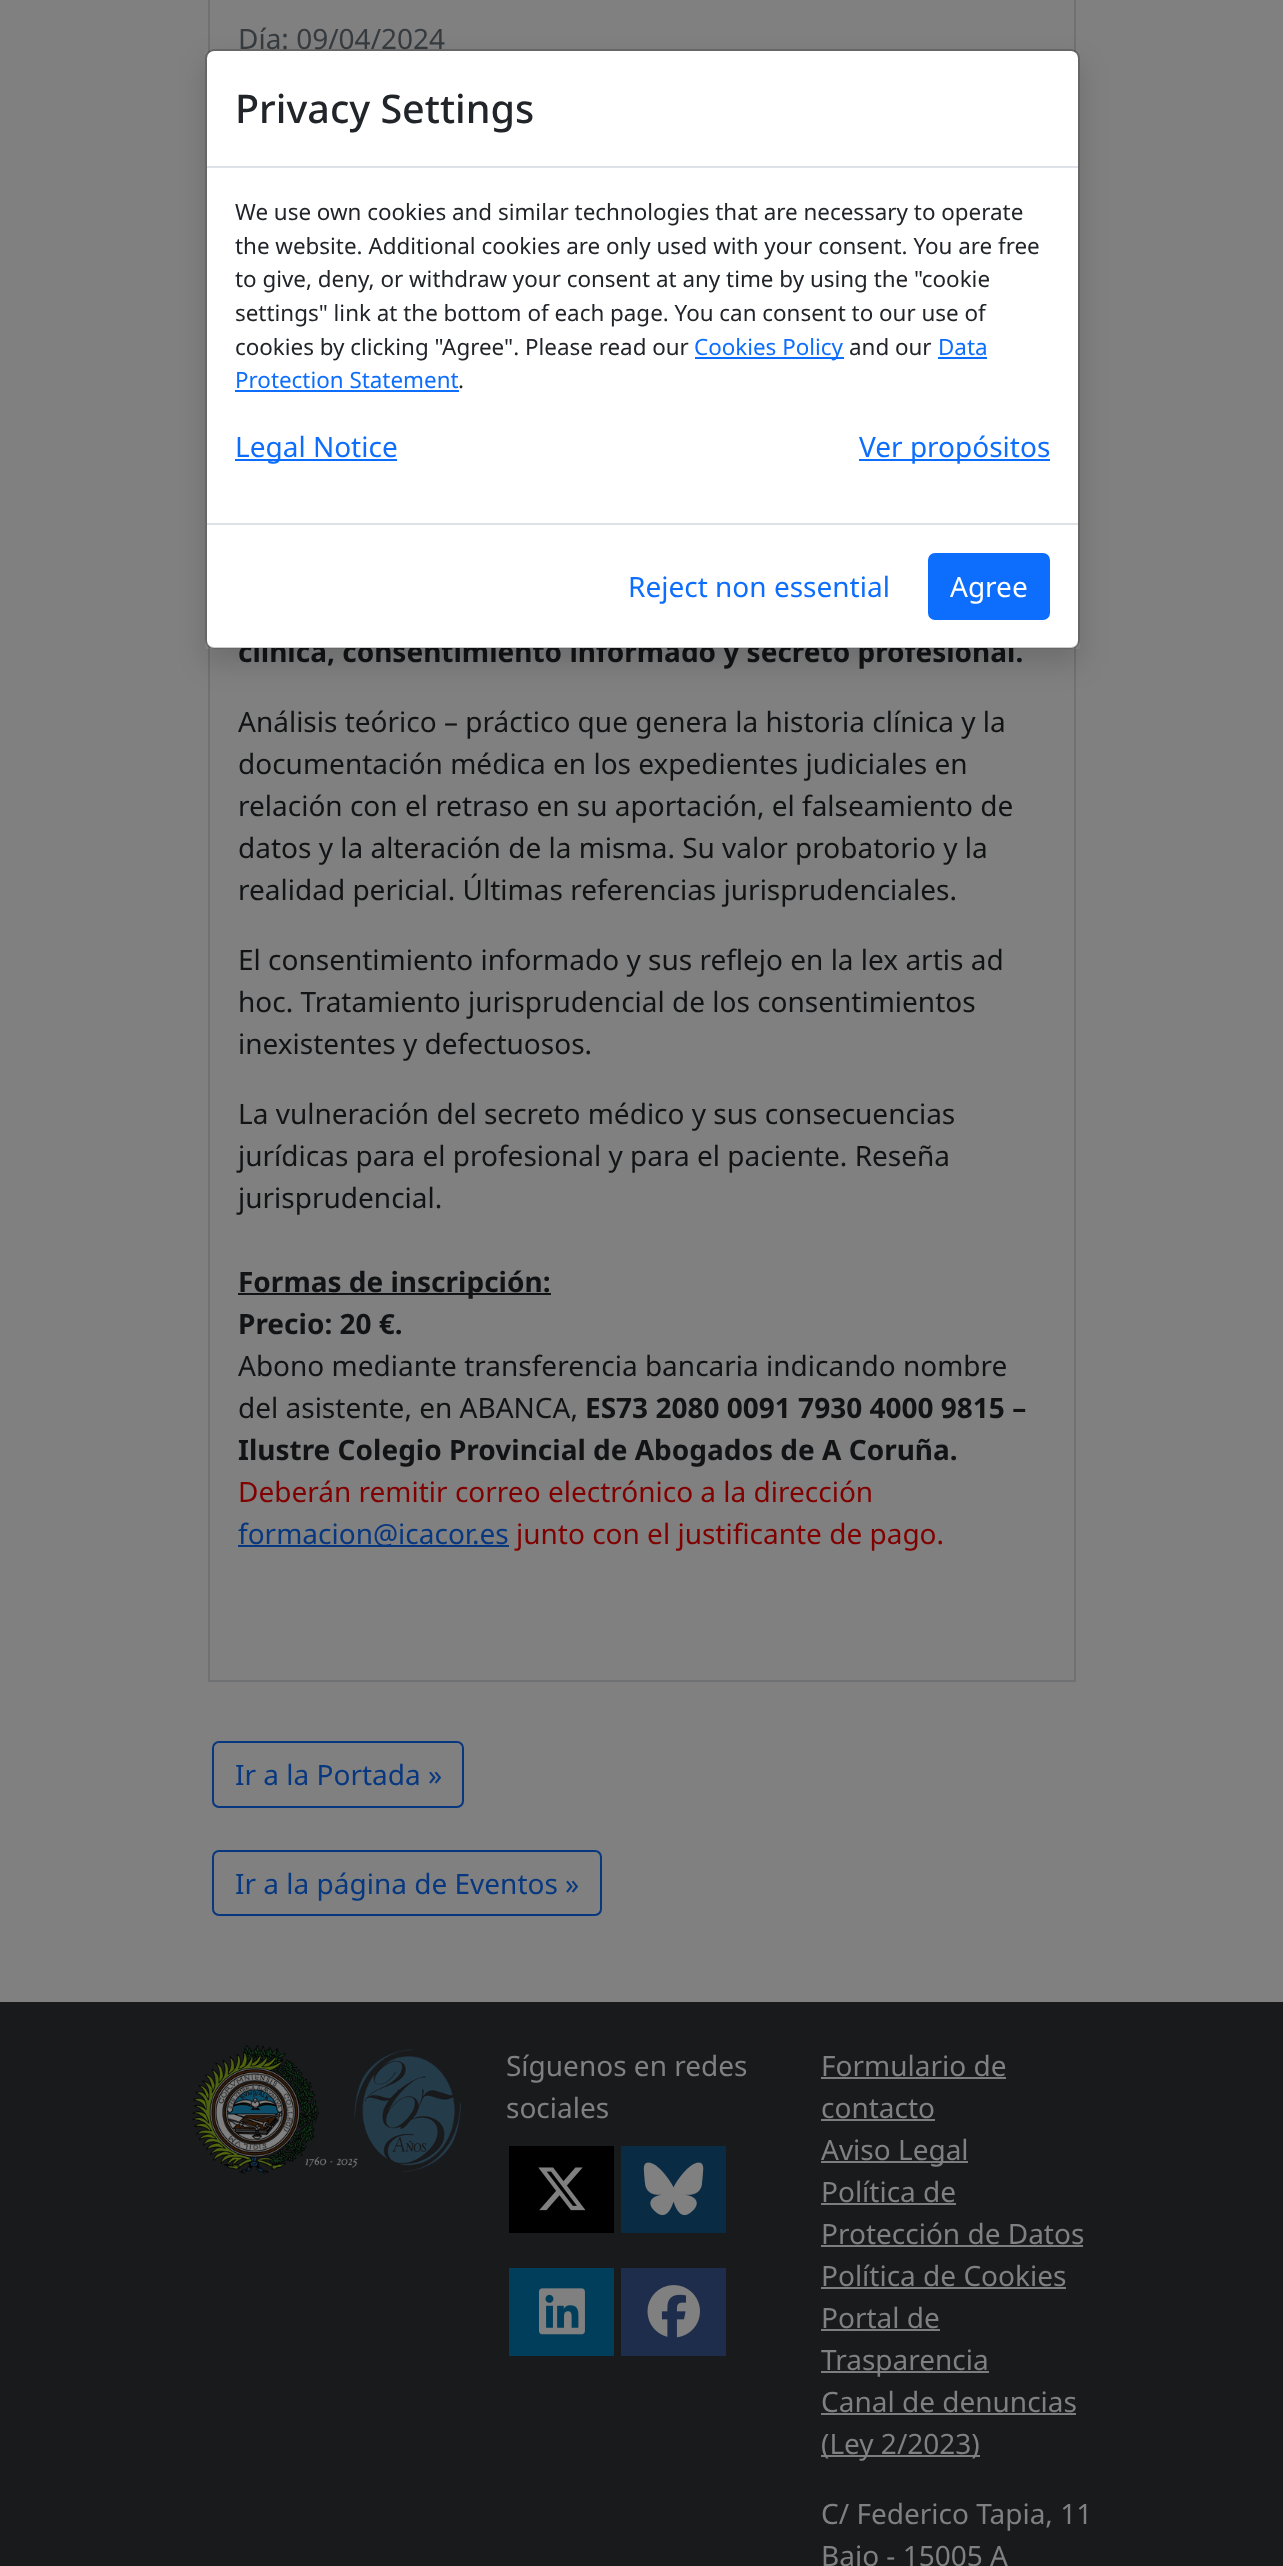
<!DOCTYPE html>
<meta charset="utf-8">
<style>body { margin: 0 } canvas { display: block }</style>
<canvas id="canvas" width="1283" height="2566"></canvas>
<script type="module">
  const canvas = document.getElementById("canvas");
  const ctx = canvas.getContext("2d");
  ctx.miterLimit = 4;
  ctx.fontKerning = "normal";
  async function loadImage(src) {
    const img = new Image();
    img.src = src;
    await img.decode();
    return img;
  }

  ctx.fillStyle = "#808080";
  ctx.fillRect(0, 0, 1283, 2566);
  ctx.strokeStyle = "#6f7173";
  ctx.lineWidth = 2;
  ctx.strokeRect(209, -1, 866, 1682);
  ctx.font = "28px Noto Sans";
  ctx.fillStyle = "#363b3f";
  ctx.fillText("Día: 09/04/2024", 238, 49);
  ctx.font = "bold 28px Noto Sans";
  ctx.fillStyle = "#111315";
  ctx.fillText("clínica, consentimiento informado y secreto profesional.", 238, 662);
  ctx.font = "28px Noto Sans";
  ctx.fillText("Análisis teórico – práctico que genera la historia clínica y la", 238, 732);
  ctx.fillText("documentación médica en los expedientes judiciales en", 238, 774);
  ctx.fillText("relación con el retraso en su aportación, el falseamiento de", 238, 816);
  ctx.fillText("datos y la alteración de la misma. Su valor probatorio y la", 238, 858);
  ctx.fillText("realidad pericial. Últimas referencias jurisprudenciales.", 238, 900);
  ctx.fillText("El consentimiento informado y sus reflejo en la lex artis ad", 238, 970);
  ctx.fillText("hoc. Tratamiento jurisprudencial de los consentimientos", 238, 1012);
  ctx.fillText("inexistentes y defectuosos.", 238, 1054);
  ctx.fillText("La vulneración del secreto médico y sus consecuencias", 238, 1124);
  ctx.fillText("jurídicas para el profesional y para el paciente. Reseña", 238, 1166);
  ctx.fillText("jurisprudencial.", 238, 1208);
  ctx.fillRect(238, 1293, 313, 2);
  ctx.font = "bold 28px Noto Sans";
  ctx.fillText("Formas de inscripción:", 238, 1292);
  ctx.fillText("Precio: 20 €.", 238, 1334);
  ctx.font = "28px Noto Sans";
  ctx.fillText("Abono mediante transferencia bancaria indicando nombre", 238, 1376);
  ctx.fillText("del asistente, en ABANCA,", 238, 1418);
  ctx.font = "bold 28px Noto Sans";
  ctx.fillText("ES73 2080 0091 7930 4000 9815 –", 585, 1418);
  ctx.fillText("Ilustre Colegio Provincial de Abogados de A Coruña.", 238, 1460);
  ctx.font = "28px Noto Sans";
  ctx.fillStyle = "#800000";
  ctx.fillText("Deberán remitir correo electrónico a la dirección", 238, 1502);
  ctx.fillStyle = "#07377f";
  ctx.fillRect(238, 1545, 271, 2);
  ctx.fillText("formacion@icacor.es", 238, 1544);
  ctx.fillStyle = "#800000";
  ctx.fillText("junto con el justificante de pago.", 516, 1544);
  ctx.beginPath();
  ctx.roundRect(213, 1742, 250, 65, 6);
  ctx.strokeStyle = "#07377f";
  ctx.stroke();
  ctx.fillStyle = "#07377f";
  ctx.fillText("Ir a la Portada »", 235, 1785);
  ctx.beginPath();
  ctx.roundRect(213, 1851, 388, 64, 6);
  ctx.stroke();
  ctx.fillText("Ir a la página de Eventos »", 235, 1894);
  ctx.fillStyle = "#191a1c";
  ctx.fillRect(0, 2002, 1283, 564);
  ctx.drawImage(await loadImage("img1.png"), 192, 2045, 269, 130);
  ctx.fillStyle = "#808080";
  ctx.fillText("Síguenos en redes", 506, 2076);
  ctx.fillText("sociales", 506, 2118);
  ctx.fillStyle = "#000000";
  ctx.fillRect(509, 2146, 105, 87);
  ctx.drawImage(await loadImage("img2.png"), 538, 2167, 48, 44);
  ctx.fillStyle = "#092b44";
  ctx.fillRect(621, 2146, 105, 87);
  ctx.drawImage(await loadImage("img3.png"), 643, 2162, 61, 54);
  ctx.fillStyle = "#003e5b";
  ctx.fillRect(509, 2268, 105, 88);
  ctx.drawImage(await loadImage("img4.png"), 539, 2288, 46, 47);
  ctx.fillStyle = "#1e2d4c";
  ctx.fillRect(621, 2268, 105, 88);
  ctx.drawImage(await loadImage("img5.png"), 647, 2285, 53, 53);
  ctx.fillStyle = "#808080";
  ctx.fillText("Formulario de", 821, 2076);
  ctx.fillStyle = "#7c7d7d";
  ctx.fillRect(821, 2077, 185, 2);
  ctx.fillStyle = "#808080";
  ctx.fillText("contacto", 821, 2118);
  ctx.fillStyle = "#7c7d7d";
  ctx.fillRect(821, 2119, 114, 2);
  ctx.fillRect(821, 2161, 147, 2);
  ctx.fillStyle = "#808080";
  ctx.fillText("Aviso Legal", 821, 2160);
  ctx.fillText("Política de", 821, 2202);
  ctx.fillStyle = "#7c7d7d";
  ctx.fillRect(821, 2203, 135, 2);
  ctx.fillStyle = "#808080";
  ctx.fillText("Protección de Datos", 821, 2244);
  ctx.fillStyle = "#7c7d7d";
  ctx.fillRect(821, 2245, 262, 2);
  ctx.fillStyle = "#808080";
  ctx.fillText("Política de Cookies", 821, 2286);
  ctx.fillStyle = "#7c7d7d";
  ctx.fillRect(821, 2287, 245, 2);
  ctx.fillStyle = "#808080";
  ctx.fillText("Portal de", 821, 2328);
  ctx.fillStyle = "#7c7d7d";
  ctx.fillRect(821, 2329, 119, 2);
  ctx.fillRect(821, 2371, 168, 2);
  ctx.fillStyle = "#808080";
  ctx.fillText("Trasparencia", 821, 2370);
  ctx.fillText("Canal de denuncias", 821, 2412);
  ctx.fillStyle = "#7c7d7d";
  ctx.fillRect(821, 2413, 255, 2);
  ctx.fillRect(821, 2455, 159, 2);
  ctx.fillStyle = "#808080";
  ctx.fillText("(Ley 2/2023)", 821, 2454);
  ctx.fillText("C/ Federico Tapia, 11", 821, 2524);
  ctx.fillText("Bajo - 15005 A", 821, 2566);
  ctx.save();
  ctx.beginPath();
  ctx.moveTo(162, 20);
  ctx.lineTo(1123, 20);
  ctx.lineTo(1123, 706);
  ctx.lineTo(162, 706);
  ctx.closePath();
  ctx.moveTo(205, 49);
  ctx.lineTo(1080, 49);
  ctx.lineTo(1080, 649);
  ctx.lineTo(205, 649);
  ctx.closePath();
  ctx.clip("evenodd");
  ctx.fillStyle = "rgba(0, 0, 0, 0.15)";
  ctx.filter = "blur(14px)";
  ctx.beginPath();
  ctx.rect(205, 63, 875, 600);
  ctx.fill();
  ctx.filter = "none";
  ctx.restore();
  ctx.fillStyle = "#ffffff";
  ctx.beginPath();
  ctx.roundRect(207, 51, 871, 597, 7);
  ctx.fill();
  ctx.beginPath();
  ctx.roundRect(206, 50, 873, 598, 8);
  ctx.strokeStyle = "rgba(0, 0, 0, 0.2)";
  ctx.stroke();
  ctx.fillStyle = "#dee2e6";
  ctx.fillRect(207, 166, 871, 2);
  ctx.font = "500 39.5px Noto Sans";
  ctx.fillStyle = "#212529";
  ctx.fillText("Privacy Settings", 235, 123);
  ctx.font = "22.4px Noto Sans";
  ctx.fillText("We use own cookies and similar technologies that are necessary to operate", 235, 220);
  ctx.fillText("the website. Additional cookies are only used with your consent. You are free", 235, 254);
  ctx.fillText("to give, deny, or withdraw your consent at any time by using the \"cookie", 235, 287);
  ctx.fillText("settings\" link at the bottom of each page. You can consent to our use of", 235, 321);
  ctx.fillText("cookies by clicking \"Agree\". Please read our", 235, 355);
  ctx.fillStyle = "#0d6efd";
  ctx.fillRect(695, 357, 149, 2);
  ctx.fillText("Cookies Policy", 694, 355);
  ctx.fillStyle = "#212529";
  ctx.fillText("and our", 849, 355);
  ctx.fillStyle = "#0d6efd";
  ctx.fillText("Data", 938, 355);
  ctx.fillRect(938, 357, 49, 2);
  ctx.fillText("Protection Statement", 235, 388);
  ctx.fillRect(235, 390, 224, 2);
  ctx.fillStyle = "#212529";
  ctx.fillText(".", 458, 388);
  ctx.fillStyle = "#0d6efd";
  ctx.fillRect(235, 459, 162, 2);
  ctx.font = "28px Noto Sans";
  ctx.fillText("Legal Notice", 235, 457);
  ctx.fillRect(859, 459, 191, 2);
  ctx.fillText("Ver propósitos", 859, 457);
  ctx.fillStyle = "#dee2e6";
  ctx.fillRect(207, 523, 871, 2);
  ctx.fillStyle = "#0d6efd";
  ctx.fillText("Reject non essential", 628, 597);
  ctx.beginPath();
  ctx.roundRect(929, 554, 120, 65, 6);
  ctx.fill();
  ctx.strokeStyle = "#0d6efd";
  ctx.stroke();
  ctx.fillStyle = "#ffffff";
  ctx.fillText("Agree", 950, 597);
</script>
